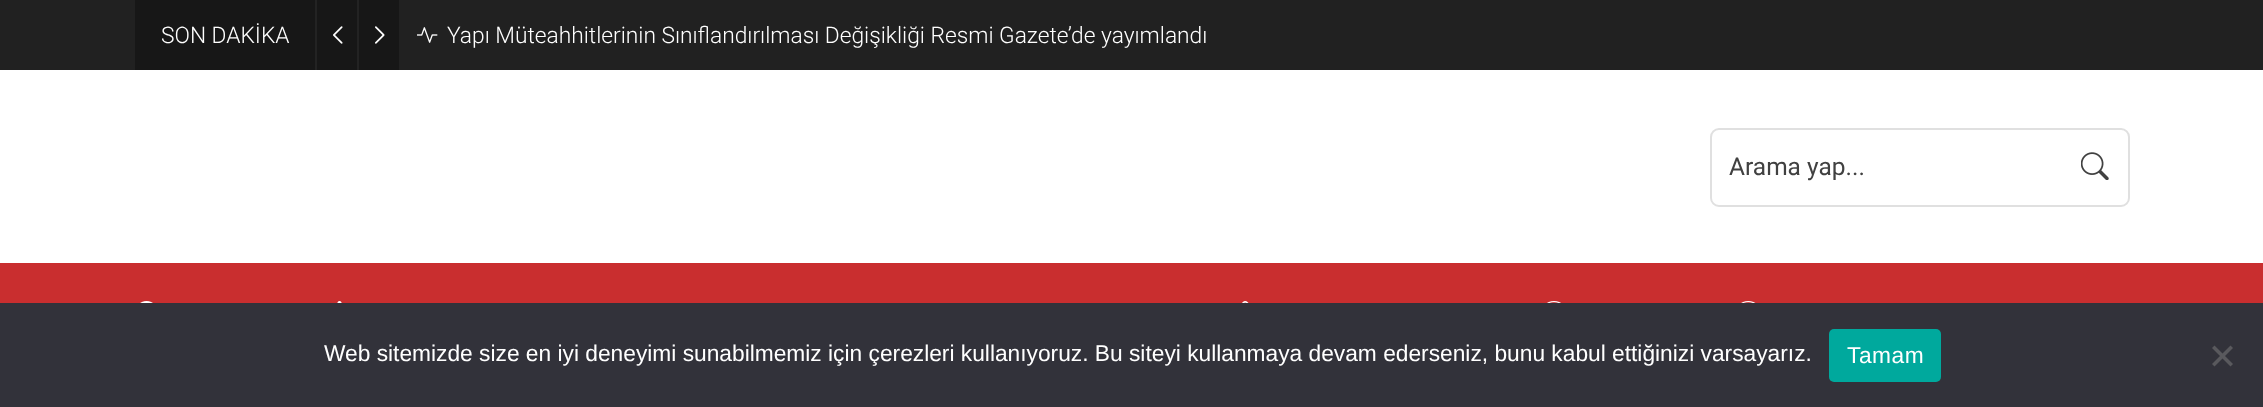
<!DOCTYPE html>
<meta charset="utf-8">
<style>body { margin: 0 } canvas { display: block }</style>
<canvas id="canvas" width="2263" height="407"></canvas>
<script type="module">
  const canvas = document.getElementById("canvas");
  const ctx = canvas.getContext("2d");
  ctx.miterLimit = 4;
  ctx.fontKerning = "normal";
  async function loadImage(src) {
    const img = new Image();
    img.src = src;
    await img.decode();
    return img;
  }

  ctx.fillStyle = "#212121";
  ctx.fillRect(0, 0, 2263, 407);
  ctx.fillStyle = "#171717";
  ctx.fillRect(135, 0, 264, 70);
  ctx.font = "300 22.75px Roboto";
  ctx.fillStyle = "#ffffff";
  ctx.fillText("SON DAKİKA", 161, 43);
  ctx.fillStyle = "#232323";
  ctx.fillRect(315, 0, 2, 70);
  ctx.drawImage(await loadImage("img1.png"), 333, 26, 10, 18);
  ctx.fillRect(357, 0, 2, 70);
  ctx.drawImage(await loadImage("img2.png"), 375, 26, 10, 18);
  ctx.drawImage(await loadImage("img3.png"), 417, 27, 21, 16);
  ctx.fillStyle = "#ffffff";
  ctx.fillText("Yapı Müteahhitlerinin Sınıflandırılması Değişikliği Resmi Gazete’de yayımlandı", 447, 43);
  ctx.fillRect(0, 70, 2263, 193);
  ctx.beginPath();
  ctx.roundRect(1711, 129, 418, 77, 8);
  ctx.strokeStyle = "#e0e0e0";
  ctx.lineWidth = 2;
  ctx.stroke();
  ctx.font = "24.5px Roboto";
  ctx.fillStyle = "#414141";
  ctx.fillText("Arama yap...", 1729, 175);
  ctx.drawImage(await loadImage("img4.png"), 2081, 152, 28, 28);
  ctx.fillStyle = "#c92e2f";
  ctx.fillRect(0, 263, 2263, 40);
  ctx.drawImage(await loadImage("img5.png"), 140, 301, 13, 2);
  ctx.drawImage(await loadImage("img6.png"), 337, 301, 5, 2);
  ctx.drawImage(await loadImage("img7.png"), 1242, 301, 7, 2);
  ctx.drawImage(await loadImage("img8.png"), 1547, 301, 14, 2);
  ctx.drawImage(await loadImage("img9.png"), 1741, 301, 15, 2);
  ctx.fillStyle = "#32323a";
  ctx.fillRect(0, 303, 2263, 104);
  ctx.font = "22.75px Liberation Sans";
  ctx.fillStyle = "#ffffff";
  ctx.fillText("Web sitemizde size en iyi deneyimi sunabilmemiz için çerezleri kullanıyoruz. Bu siteyi kullanmaya devam ederseniz, bunu kabul ettiğinizi varsayarız.", 324, 361);
  ctx.fillStyle = "#00a99d";
  ctx.beginPath();
  ctx.roundRect(1829, 329, 112, 53, 5);
  ctx.fill();
  ctx.letterSpacing = "0.5px";
  ctx.fillStyle = "#ffffff";
  ctx.fillText("Tamam", 1847, 363);
  ctx.fillStyle = "#59595d";
  ctx.beginPath();
  ctx.moveTo(2230.5, 345.5);
  ctx.lineTo(2233, 348);
  ctx.lineTo(2214.5, 366.5);
  ctx.lineTo(2212, 364);
  ctx.closePath();
  ctx.fill();
  ctx.beginPath();
  ctx.moveTo(2212, 348);
  ctx.lineTo(2214.5, 345.5);
  ctx.lineTo(2233, 364);
  ctx.lineTo(2230.5, 366.5);
  ctx.closePath();
  ctx.fill();
</script>
